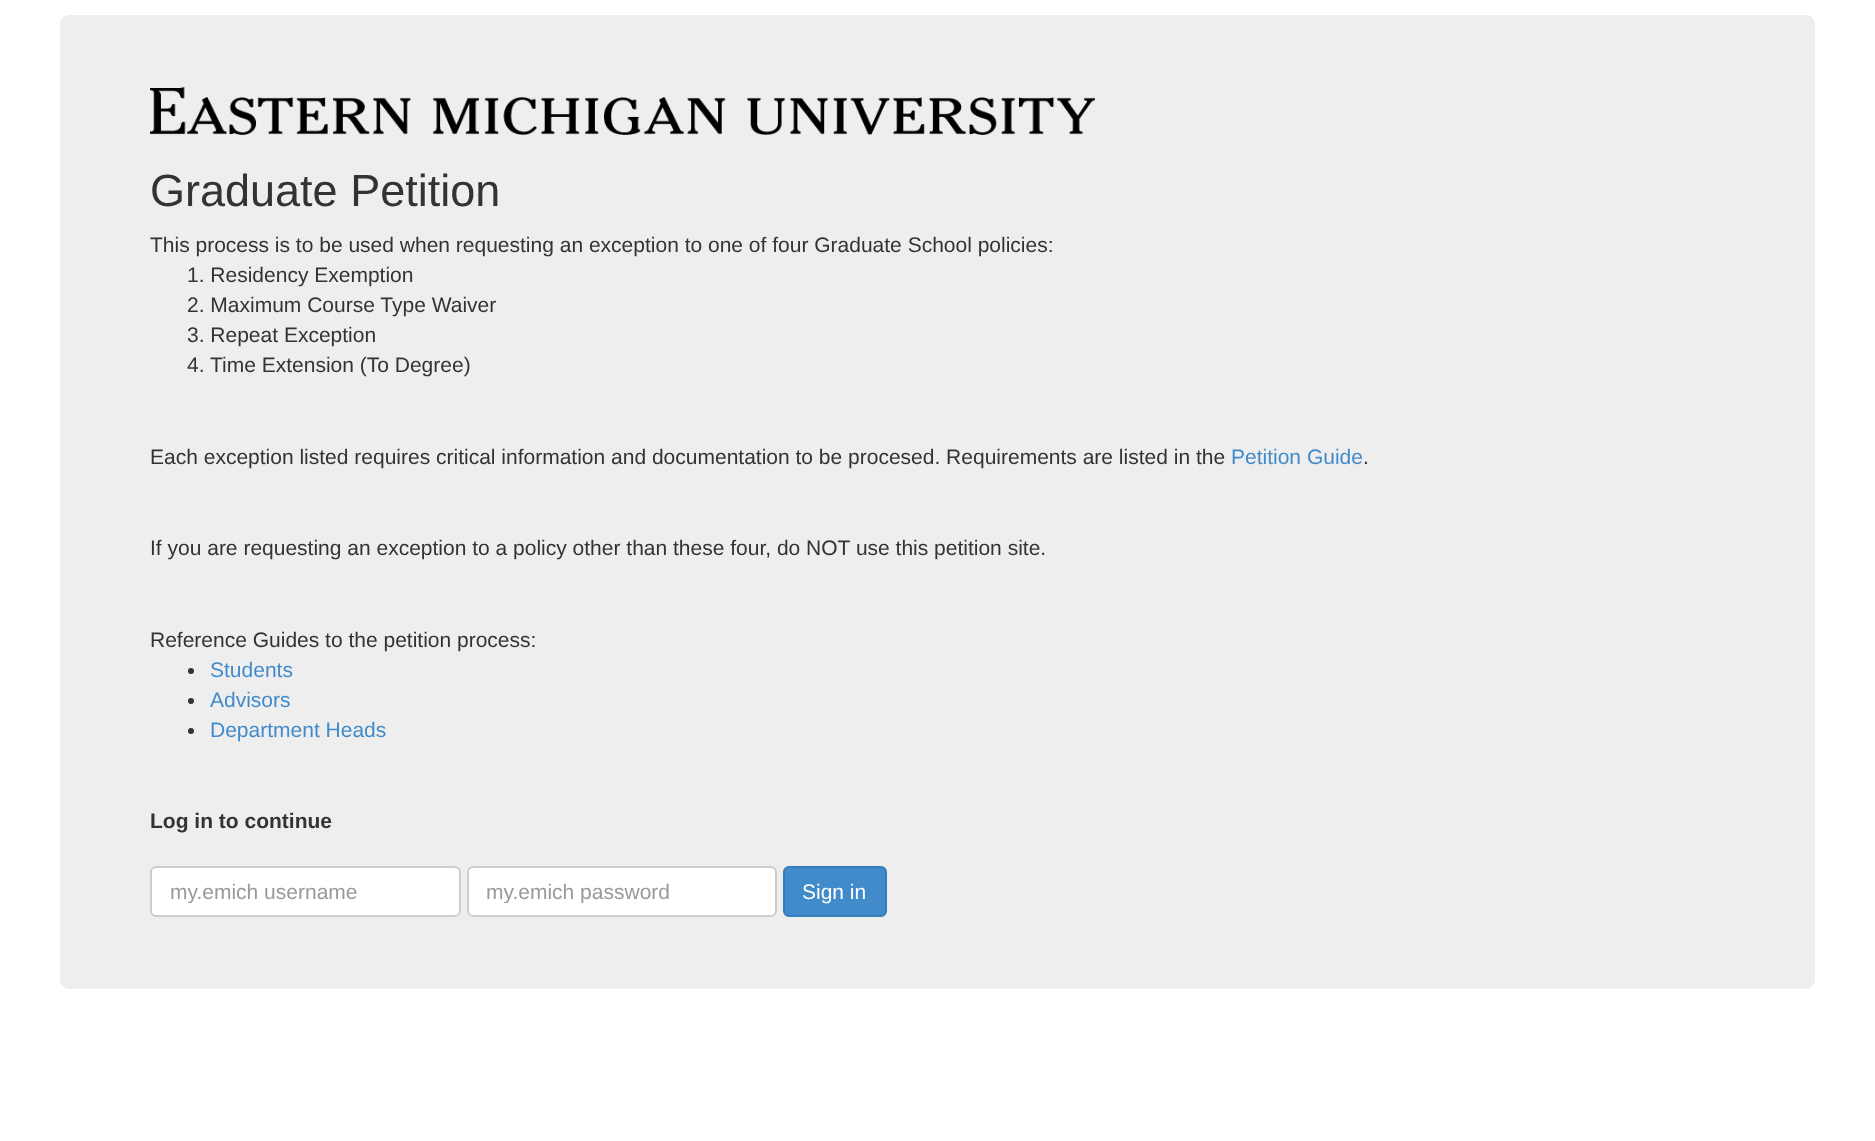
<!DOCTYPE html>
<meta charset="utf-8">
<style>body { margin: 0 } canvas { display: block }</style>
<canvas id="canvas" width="1875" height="1141"></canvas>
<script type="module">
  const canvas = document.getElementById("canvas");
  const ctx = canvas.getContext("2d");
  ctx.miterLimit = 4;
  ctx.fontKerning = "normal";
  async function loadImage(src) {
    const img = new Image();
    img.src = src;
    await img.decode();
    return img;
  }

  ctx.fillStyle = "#ffffff";
  ctx.fillRect(0, 0, 1875, 1141);
  ctx.fillStyle = "#eeeeee";
  ctx.beginPath();
  ctx.roundRect(60, 15, 1755, 974, 9);
  ctx.fill();
  ctx.drawImage(await loadImage("img1.png"), 150, 87, 945, 48);
  ctx.font = "45px Liberation Sans";
  ctx.fillStyle = "#333333";
  ctx.fillText("Graduate Petition", 150, 206);
  ctx.font = "21px Liberation Sans";
  ctx.fillText("This process is to be used when requesting an exception to one of four Graduate School policies:", 150, 252);
  ctx.fillText("1. Residency Exemption", 187, 282);
  ctx.fillText("2. Maximum Course Type Waiver", 187, 312);
  ctx.fillText("3. Repeat Exception", 187, 342);
  ctx.fillText("4. Time Extension (To Degree)", 187, 372);
  ctx.fillText("Each exception listed requires critical information and documentation to be procesed. Requirements are listed in the", 150, 464);
  ctx.fillStyle = "#428bca";
  ctx.fillText("Petition Guide", 1231, 464);
  ctx.fillStyle = "#333333";
  ctx.fillText(".", 1363, 464);
  ctx.fillText("If you are requesting an exception to a policy other than these four, do NOT use this petition site.", 150, 555);
  ctx.fillText("Reference Guides to the petition process:", 150, 647);
  ctx.beginPath();
  ctx.arc(191, 671, 3, 0, Math.PI * 2);
  ctx.fill();
  ctx.fillStyle = "#428bca";
  ctx.fillText("Students", 210, 677);
  ctx.fillStyle = "#333333";
  ctx.beginPath();
  ctx.arc(191, 701, 3, 0, Math.PI * 2);
  ctx.fill();
  ctx.fillStyle = "#428bca";
  ctx.fillText("Advisors", 210, 707);
  ctx.fillStyle = "#333333";
  ctx.beginPath();
  ctx.arc(191, 731, 3, 0, Math.PI * 2);
  ctx.fill();
  ctx.fillStyle = "#428bca";
  ctx.fillText("Department Heads", 210, 737);
  ctx.font = "bold 21px Liberation Sans";
  ctx.fillStyle = "#333333";
  ctx.fillText("Log in to continue", 150, 828);
  ctx.fillStyle = "#ffffff";
  ctx.beginPath();
  ctx.roundRect(150, 866, 311, 51, 6);
  ctx.fill();
  ctx.fillStyle = "#ececec";
  ctx.beginPath();
  ctx.moveTo(156, 868);
  ctx.lineTo(454, 868);
  ctx.bezierCurveTo(457, 868, 459, 871, 459, 873);
  ctx.bezierCurveTo(459, 870, 457, 867, 454, 867);
  ctx.lineTo(157, 867);
  ctx.bezierCurveTo(154, 867, 152, 870, 152, 873);
  ctx.bezierCurveTo(152, 871, 154, 868, 156, 868);
  ctx.closePath();
  ctx.fill();
  ctx.beginPath();
  ctx.roundRect(151, 867, 309, 49, 5);
  ctx.strokeStyle = "#cccccc";
  ctx.lineWidth = 2;
  ctx.stroke();
  ctx.save();
  ctx.beginPath();
  ctx.rect(170, 879, 271, 24);
  ctx.clip();
  ctx.font = "21px Liberation Sans";
  ctx.fillStyle = "#999999";
  ctx.fillText("my.emich username", 170, 899);
  ctx.restore();
  ctx.fillStyle = "#ffffff";
  ctx.beginPath();
  ctx.roundRect(467, 866, 310, 51, 6);
  ctx.fill();
  ctx.fillStyle = "#ececec";
  ctx.beginPath();
  ctx.moveTo(472, 868);
  ctx.lineTo(771, 868);
  ctx.bezierCurveTo(773, 868, 776, 871, 776, 873);
  ctx.bezierCurveTo(776, 870, 774, 867, 771, 867);
  ctx.lineTo(473, 867);
  ctx.bezierCurveTo(470, 867, 468, 870, 468, 873);
  ctx.bezierCurveTo(468, 871, 470, 868, 472, 868);
  ctx.closePath();
  ctx.fill();
  ctx.beginPath();
  ctx.roundRect(468, 867, 308, 49, 5);
  ctx.stroke();
  ctx.save();
  ctx.beginPath();
  ctx.rect(486, 879, 272, 24);
  ctx.clip();
  ctx.font = "21px Liberation Sans";
  ctx.fillStyle = "#999999";
  ctx.fillText("my.emich password", 486, 899);
  ctx.restore();
  ctx.fillStyle = "#428bca";
  ctx.beginPath();
  ctx.roundRect(784, 867, 102, 49, 5);
  ctx.fill();
  ctx.strokeStyle = "#357ebd";
  ctx.stroke();
  ctx.font = "21px Liberation Sans";
  ctx.fillStyle = "#ffffff";
  ctx.fillText("Sign in", 802, 899);
</script>
